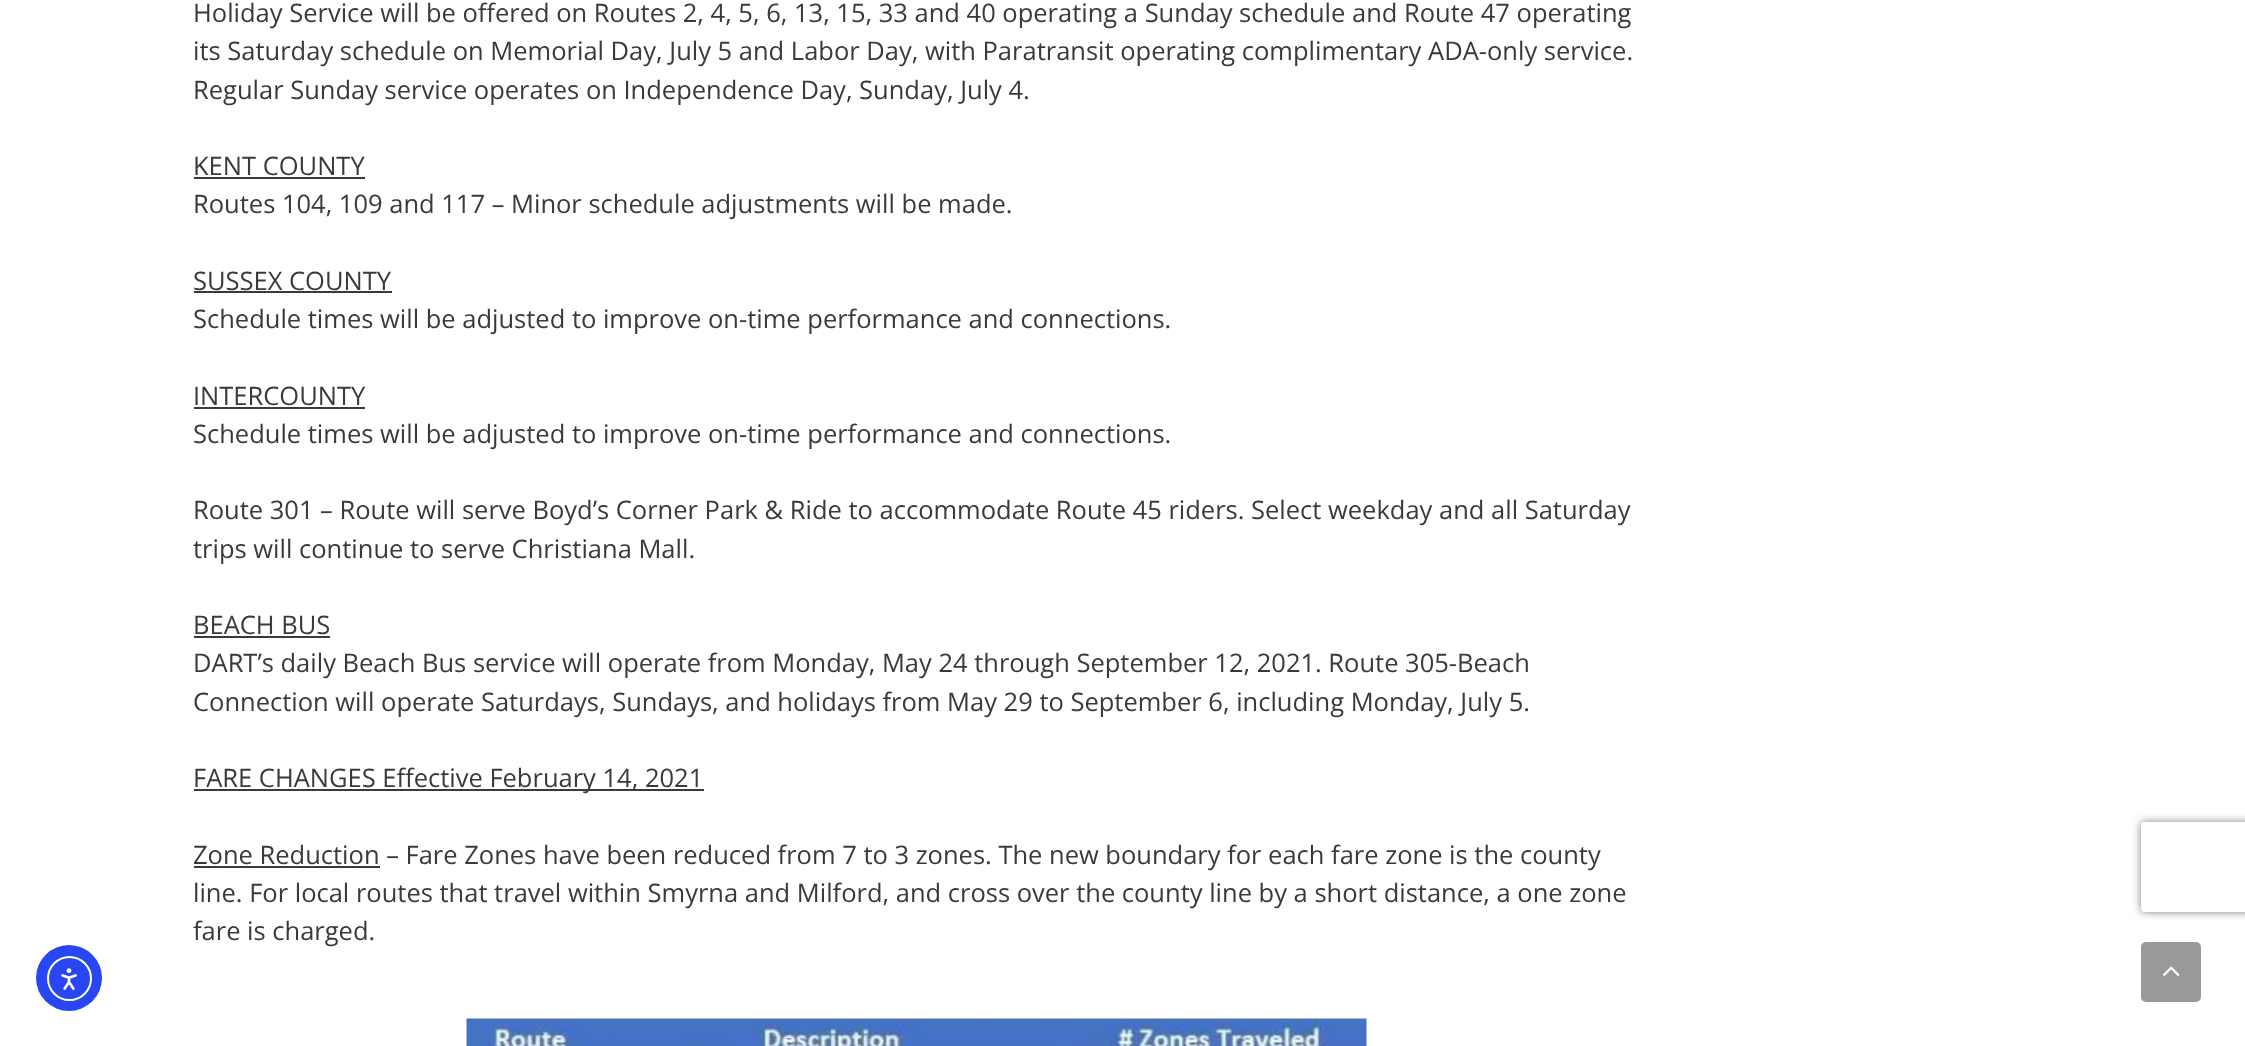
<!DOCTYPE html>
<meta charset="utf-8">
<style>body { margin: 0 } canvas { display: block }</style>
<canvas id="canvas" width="2245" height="1046"></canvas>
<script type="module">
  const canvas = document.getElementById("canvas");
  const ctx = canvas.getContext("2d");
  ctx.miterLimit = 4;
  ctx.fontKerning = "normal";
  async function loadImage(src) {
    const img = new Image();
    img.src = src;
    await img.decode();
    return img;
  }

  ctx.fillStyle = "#ffffff";
  ctx.fillRect(0, 0, 2245, 1046);
  ctx.font = "25.5px Open Sans";
  ctx.fillStyle = "#3a3a3a";
  ctx.fillText("Holiday Service will be offered on Routes 2, 4, 5, 6, 13, 15, 33 and 40 operating a Sunday schedule and Route 47 operating", 193, 22);
  ctx.fillText("its Saturday schedule on Memorial Day, July 5 and Labor Day, with Paratransit operating complimentary ADA-only service.", 193, 60);
  ctx.fillText("Regular Sunday service operates on Independence Day, Sunday, July 4.", 193, 99);
  ctx.fillText("KENT COUNTY", 193, 175);
  ctx.fillRect(194, 177, 171, 2);
  ctx.fillText("Routes 104, 109 and 117 – Minor schedule adjustments will be made.", 193, 213);
  ctx.fillText("SUSSEX COUNTY", 193, 290);
  ctx.fillRect(194, 291, 198, 2);
  ctx.fillText("Schedule times will be adjusted to improve on-time performance and connections.", 193, 328);
  ctx.fillText("INTERCOUNTY", 193, 405);
  ctx.fillRect(194, 407, 171, 2);
  ctx.fillText("Schedule times will be adjusted to improve on-time performance and connections.", 193, 443);
  ctx.fillText("Route 301 – Route will serve Boyd’s Corner Park & Ride to accommodate Route 45 riders. Select weekday and all Saturday", 193, 519);
  ctx.fillText("trips will continue to serve Christiana Mall.", 193, 558);
  ctx.fillText("BEACH BUS", 193, 634);
  ctx.fillRect(194, 636, 136, 2);
  ctx.fillText("DART’s daily Beach Bus service will operate from Monday, May 24 through September 12, 2021. Route 305-Beach", 193, 672);
  ctx.fillText("Connection will operate Saturdays, Sundays, and holidays from May 29 to September 6, including Monday, July 5.", 193, 711);
  ctx.fillRect(194, 789, 510, 2);
  ctx.fillText("FARE CHANGES Effective February 14, 2021", 193, 787);
  ctx.fillRect(194, 866, 186, 2);
  ctx.fillText("Zone Reduction – Fare Zones have been reduced from 7 to 3 zones. The new boundary for each fare zone is the county", 193, 864);
  ctx.fillText("line. For local routes that travel within Smyrna and Milford, and cross over the county line by a short distance, a one zone", 193, 902);
  ctx.fillText("fare is charged.", 193, 940);
  ctx.drawImage(await loadImage("img1.png"), 466, 1018, 901, 28);
  ctx.save();
  ctx.beginPath();
  ctx.moveTo(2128, 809);
  ctx.lineTo(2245, 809);
  ctx.lineTo(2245, 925);
  ctx.lineTo(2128, 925);
  ctx.closePath();
  ctx.moveTo(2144, 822);
  ctx.lineTo(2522, 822);
  ctx.bezierCurveTo(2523.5, 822, 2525, 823.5, 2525, 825);
  ctx.lineTo(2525, 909);
  ctx.bezierCurveTo(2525, 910.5, 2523.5, 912, 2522, 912);
  ctx.lineTo(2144, 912);
  ctx.bezierCurveTo(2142.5, 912, 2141, 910.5, 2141, 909);
  ctx.lineTo(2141, 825);
  ctx.bezierCurveTo(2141, 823.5, 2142.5, 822, 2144, 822);
  ctx.closePath();
  ctx.clip("evenodd");
  ctx.fillStyle = "#808080";
  ctx.filter = "blur(4px)";
  ctx.beginPath();
  ctx.roundRect(2141, 822, 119, 90, 3);
  ctx.fill();
  ctx.filter = "none";
  ctx.restore();
  ctx.fillStyle = "#2847f3";
  ctx.beginPath();
  ctx.arc(69, 978, 33, 0, Math.PI * 2);
  ctx.fill();
  ctx.beginPath();
  ctx.arc(69.5, 978.5, 21.5, 0, Math.PI * 2);
  ctx.strokeStyle = "#ffffff";
  ctx.lineWidth = 2;
  ctx.stroke();
  ctx.drawImage(await loadImage("img2.png"), 61, 968, 16, 22);
  ctx.fillStyle = "#999999";
  ctx.beginPath();
  ctx.roundRect(2141, 942, 60, 60, 5);
  ctx.fill();
  ctx.drawImage(await loadImage("img3.png"), 2162, 966, 18, 10);
</script>
